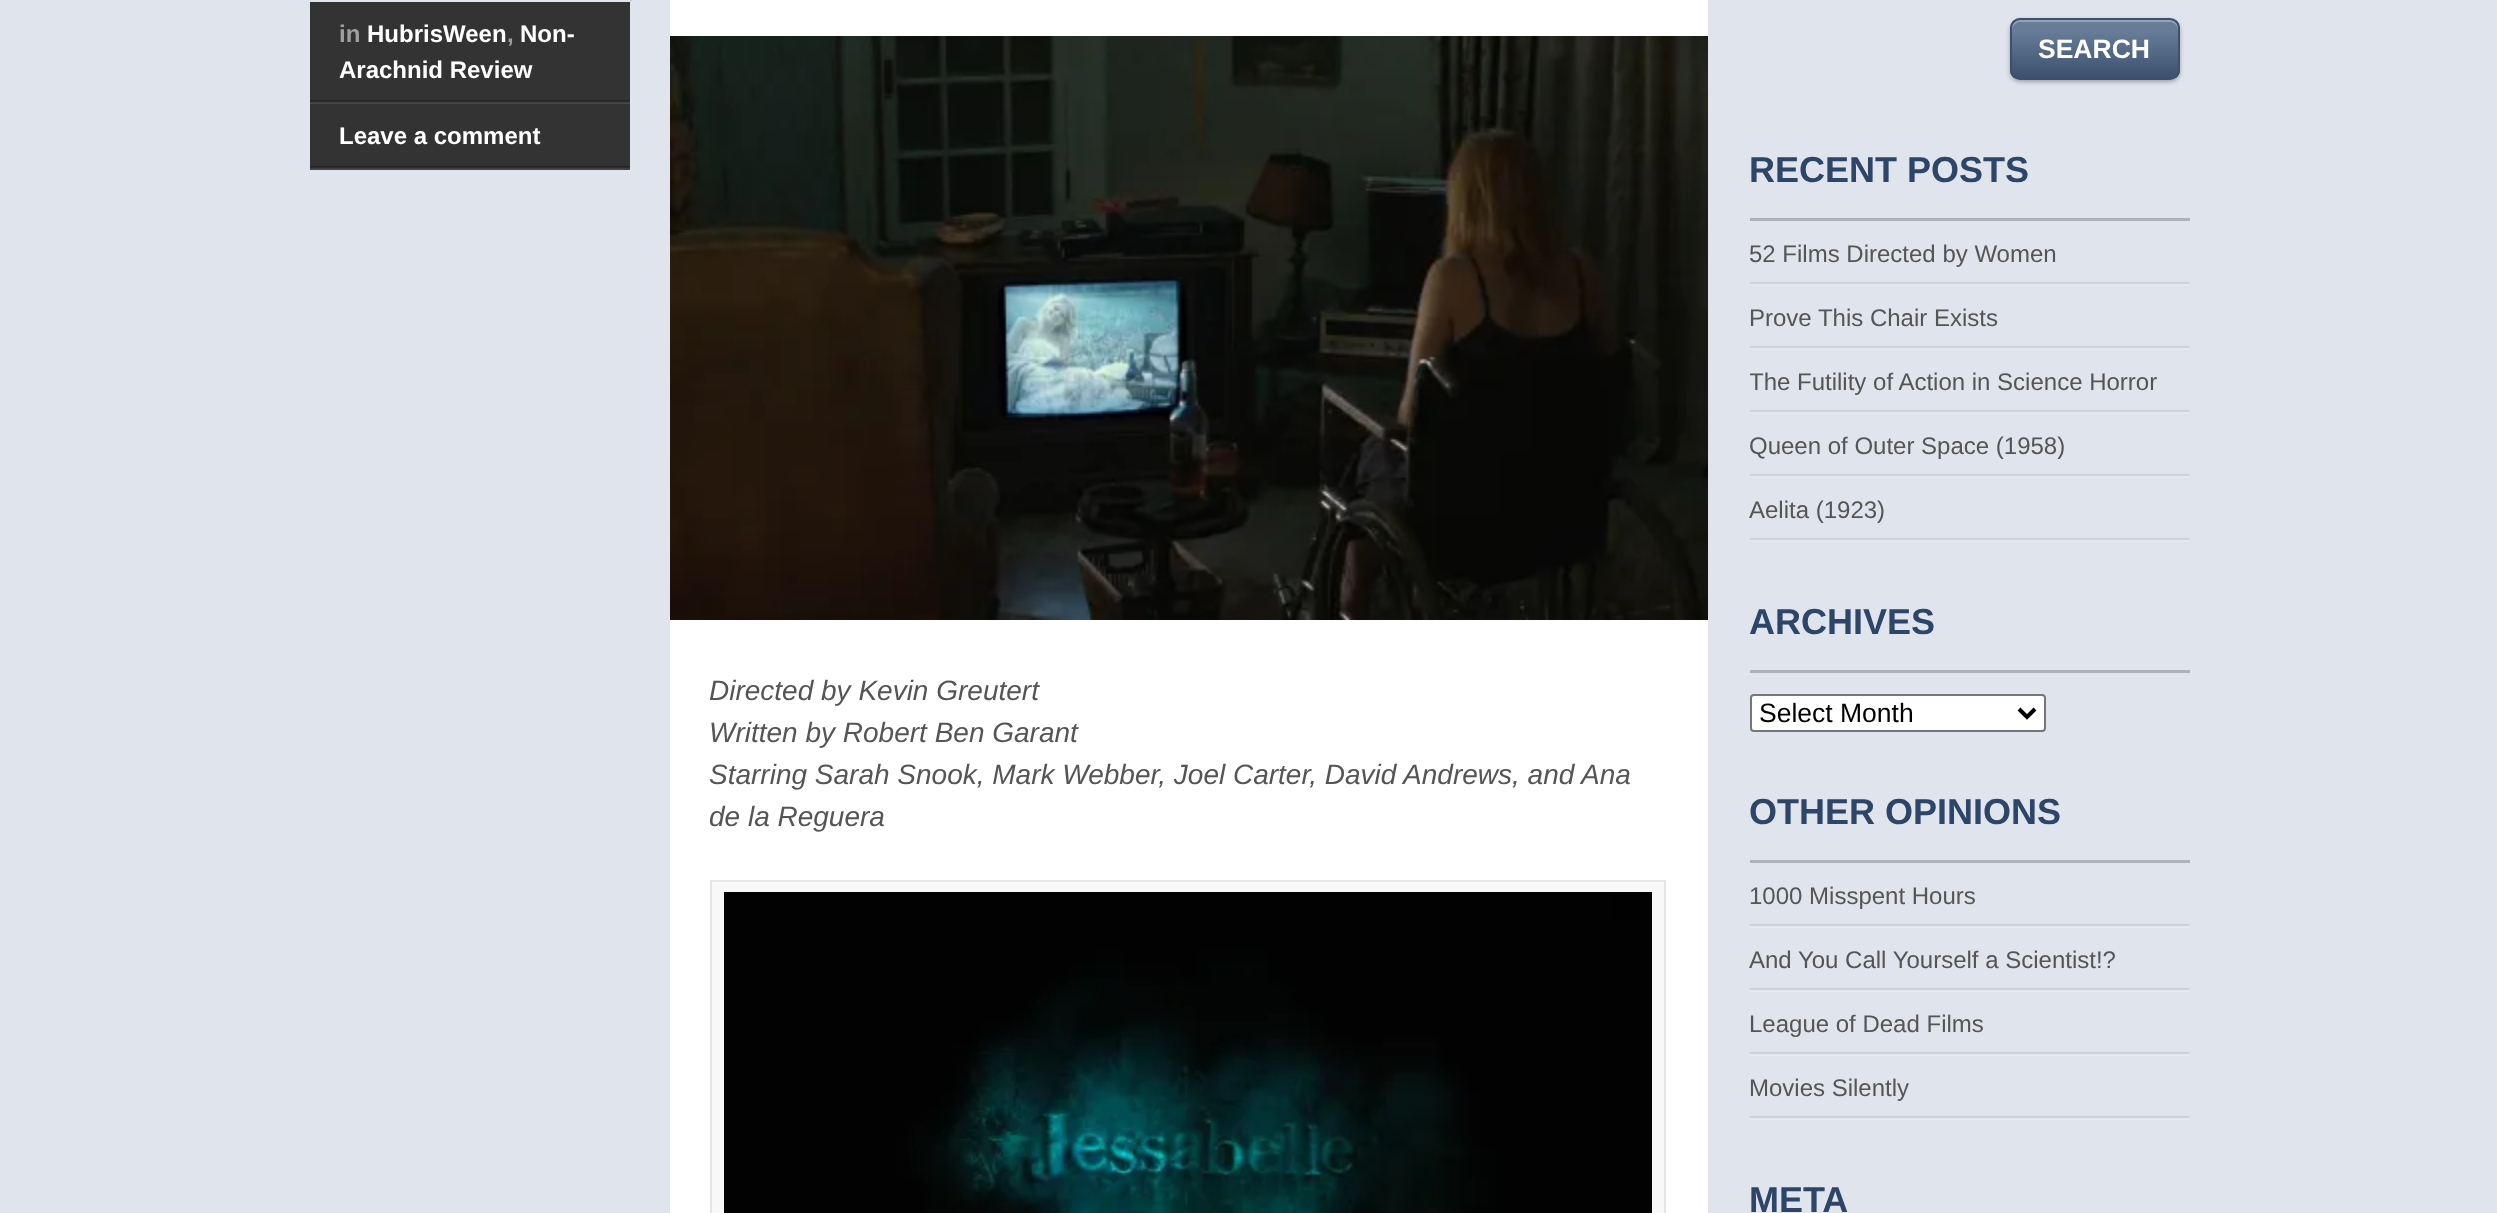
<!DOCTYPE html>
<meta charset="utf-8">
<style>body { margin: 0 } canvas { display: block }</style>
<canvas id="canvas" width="2497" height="1213"></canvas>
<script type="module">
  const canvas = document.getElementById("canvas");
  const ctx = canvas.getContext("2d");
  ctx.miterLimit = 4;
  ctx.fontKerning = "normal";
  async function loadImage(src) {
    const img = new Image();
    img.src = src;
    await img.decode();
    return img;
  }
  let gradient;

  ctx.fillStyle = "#e0e4ed";
  ctx.fillRect(0, 0, 2497, 1213);
  ctx.drawImage(await loadImage("img1.png"), 630, 0, 3, 2);
  ctx.fillStyle = "#333333";
  ctx.fillRect(310, 2, 320, 168);
  ctx.drawImage(await loadImage("img2.png"), 310, 100, 320, 4);
  ctx.font = "bold 24px Liberation Sans";
  ctx.fillStyle = "#9f9f9f";
  ctx.fillText("in", 339, 42);
  ctx.fillStyle = "#ffffff";
  ctx.fillText("HubrisWeen", 367, 42);
  ctx.fillStyle = "#9f9f9f";
  ctx.fillText(",", 507, 42);
  ctx.fillStyle = "#ffffff";
  ctx.fillText("Non-", 520, 42);
  ctx.fillText("Arachnid Review", 339, 78);
  ctx.drawImage(await loadImage("img2.png"), 310, 166, 320, 4);
  ctx.fillText("Leave a comment", 339, 144);
  ctx.fillRect(670, 0, 1038, 1213);
  ctx.fillStyle = "#e3e3e3";
  ctx.fillRect(1708, 0, 2, 1213);
  ctx.drawImage(await loadImage("img3.png"), 670, 36, 1038, 584);
  ctx.font = "italic 28px Liberation Sans";
  ctx.fillStyle = "#555555";
  ctx.fillText("Directed by Kevin Greutert", 709, 700);
  ctx.fillText("Written by Robert Ben Garant", 709, 742);
  ctx.fillText("Starring Sarah Snook, Mark Webber, Joel Carter, David Andrews, and Ana", 709, 784);
  ctx.fillText("de la Reguera", 709, 826);
  ctx.fillStyle = "#f8f8f8";
  ctx.beginPath();
  ctx.rect(711, 881, 954, 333);
  ctx.fill();
  ctx.strokeStyle = "#e6e6e6";
  ctx.lineWidth = 2;
  ctx.stroke();
  ctx.drawImage(await loadImage("img4.png"), 724, 892, 928, 321);
  ctx.fillStyle = "rgba(0, 0, 0, 0.29)";
  ctx.filter = "blur(2px)";
  ctx.beginPath();
  ctx.roundRect(2010, 20, 170, 62, 10);
  ctx.fill();
  ctx.filter = "none";
  ctx.save();
  ctx.beginPath();
  ctx.roundRect(2010, 18, 170, 62, 10);
  ctx.clip();
  gradient = ctx.createLinearGradient(2012, 20, 2012, 78);
  gradient.addColorStop(0.2, "#677c97");
  gradient.addColorStop(1, "#3a506c");
  ctx.fillStyle = gradient;
  ctx.fillRect(2010, 20, 170, 58);
  ctx.restore();
  ctx.fillStyle = "#95a3b6";
  ctx.beginPath();
  ctx.moveTo(2020, 22);
  ctx.lineTo(2170, 22);
  ctx.bezierCurveTo(2174, 22, 2178, 26, 2178, 30);
  ctx.lineTo(2178, 28);
  ctx.bezierCurveTo(2178, 24, 2174, 20, 2170, 20);
  ctx.lineTo(2020, 20);
  ctx.bezierCurveTo(2016, 20, 2012, 24, 2012, 28);
  ctx.lineTo(2012, 30);
  ctx.bezierCurveTo(2012, 26, 2016, 22, 2020, 22);
  ctx.closePath();
  ctx.fill();
  ctx.beginPath();
  ctx.roundRect(2011, 19, 168, 60, 9);
  ctx.strokeStyle = "#3a506c";
  ctx.stroke();
  ctx.font = "bold 26.5px Liberation Sans";
  ctx.fillStyle = "#ffffff";
  ctx.fillText("SEARCH", 2038, 58);
  ctx.fillStyle = "#afb2b9";
  ctx.fillRect(1750, 218, 440, 3);
  ctx.font = "bold 36px Liberation Sans";
  ctx.fillStyle = "#2d4567";
  ctx.fillText("RECENT POSTS", 1749, 182);
  ctx.drawImage(await loadImage("img5.png"), 1750, 282, 440, 4);
  ctx.font = "24px Liberation Sans";
  ctx.fillStyle = "#555555";
  ctx.fillText("52 Films Directed by Women", 1749, 262);
  ctx.drawImage(await loadImage("img5.png"), 1750, 346, 440, 4);
  ctx.fillText("Prove This Chair Exists", 1749, 326);
  ctx.drawImage(await loadImage("img5.png"), 1750, 410, 440, 4);
  ctx.save();
  ctx.beginPath();
  ctx.rect(1750, 0, 440, 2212);
  ctx.clip();
  ctx.fillText("The Futility of Action in Science Horror", 1749, 390);
  ctx.restore();
  ctx.drawImage(await loadImage("img5.png"), 1750, 474, 440, 4);
  ctx.fillText("Queen of Outer Space (1958)", 1749, 454);
  ctx.drawImage(await loadImage("img5.png"), 1750, 538, 440, 4);
  ctx.fillText("Aelita (1923)", 1749, 518);
  ctx.fillStyle = "#afb2b9";
  ctx.fillRect(1750, 670, 440, 3);
  ctx.font = "bold 36px Liberation Sans";
  ctx.fillStyle = "#2d4567";
  ctx.fillText("ARCHIVES", 1749, 634);
  ctx.fillStyle = "#ffffff";
  ctx.beginPath();
  ctx.roundRect(1751, 695, 294, 36, 3);
  ctx.fill();
  ctx.strokeStyle = "#767676";
  ctx.stroke();
  ctx.beginPath();
  ctx.moveTo(2019, 709);
  ctx.lineTo(2027, 717);
  ctx.lineTo(2035, 709);
  ctx.strokeStyle = "#000000";
  ctx.lineWidth = 4;
  ctx.stroke();
  ctx.font = "26.5px Liberation Sans";
  ctx.fillStyle = "#000000";
  ctx.fillText("Select Month", 1759, 722);
  ctx.fillStyle = "#afb2b9";
  ctx.fillRect(1750, 860, 440, 3);
  ctx.font = "bold 36px Liberation Sans";
  ctx.fillStyle = "#2d4567";
  ctx.fillText("OTHER OPINIONS", 1749, 824);
  ctx.drawImage(await loadImage("img5.png"), 1750, 924, 440, 4);
  ctx.font = "24px Liberation Sans";
  ctx.fillStyle = "#555555";
  ctx.fillText("1000 Misspent Hours", 1749, 904);
  ctx.drawImage(await loadImage("img5.png"), 1750, 988, 440, 4);
  ctx.fillText("And You Call Yourself a Scientist!?", 1749, 968);
  ctx.drawImage(await loadImage("img5.png"), 1750, 1052, 440, 4);
  ctx.fillText("League of Dead Films", 1749, 1032);
  ctx.drawImage(await loadImage("img5.png"), 1750, 1116, 440, 4);
  ctx.fillText("Movies Silently", 1749, 1096);
  ctx.font = "bold 36px Liberation Sans";
  ctx.fillStyle = "#2d4567";
  ctx.fillText("META", 1749, 1212);
</script>
